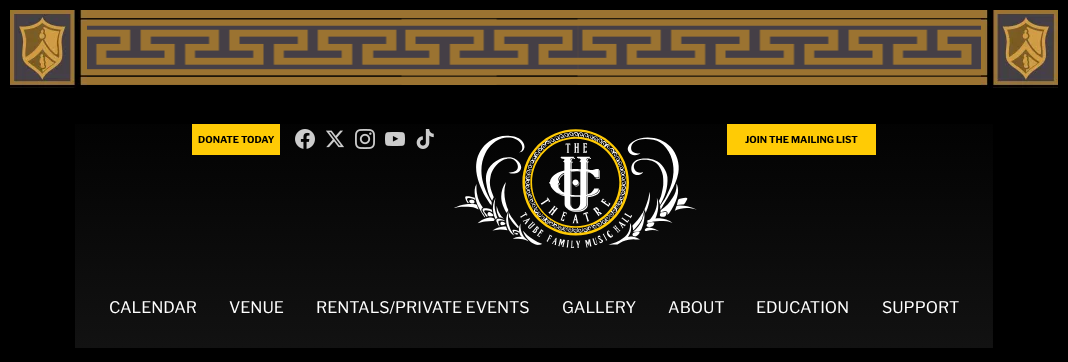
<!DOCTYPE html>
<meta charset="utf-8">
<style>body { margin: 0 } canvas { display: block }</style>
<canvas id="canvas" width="1068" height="362"></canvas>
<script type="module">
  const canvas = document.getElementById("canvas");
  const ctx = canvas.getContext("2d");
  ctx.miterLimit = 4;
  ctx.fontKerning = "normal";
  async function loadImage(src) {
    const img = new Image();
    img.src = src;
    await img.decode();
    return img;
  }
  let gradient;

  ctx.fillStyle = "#000000";
  ctx.fillRect(0, 0, 1068, 362);
  ctx.drawImage(await loadImage("img1.png"), 10, 10, 77, 78);
  ctx.drawImage(await loadImage("img2.png"), 87, 10, 894, 75);
  ctx.drawImage(await loadImage("img3.png"), 981, 10, 77, 78);
  gradient = ctx.createLinearGradient(534, 88, 534, 348);
  gradient.addColorStop(0, "#000000");
  gradient.addColorStop(1, "#121212");
  ctx.fillStyle = gradient;
  ctx.fillRect(75, 124, 918, 224);
  ctx.fillStyle = "#ffcb05";
  ctx.fillRect(192, 124, 88, 31);
  ctx.font = "bold 9.6px Libre Franklin";
  ctx.fillStyle = "#000000";
  ctx.fillText("DONATE TODAY", 198, 143);
  ctx.drawImage(await loadImage("img4.png"), 295, 129, 20, 20);
  ctx.drawImage(await loadImage("img5.png"), 326, 130, 18, 18);
  ctx.drawImage(await loadImage("img6.png"), 355, 129, 20, 20);
  ctx.drawImage(await loadImage("img7.png"), 385, 132, 20, 14);
  ctx.drawImage(await loadImage("img8.png"), 416, 129, 18, 20);
  ctx.drawImage(await loadImage("img9.png"), 454, 129, 243, 119);
  ctx.fillStyle = "#ffcb05";
  ctx.fillRect(727, 124, 149, 31);
  ctx.fillStyle = "#000000";
  ctx.fillText("JOIN THE MAILING LIST", 745, 143);
  ctx.font = "16px Libre Franklin";
  ctx.fillStyle = "#ffffff";
  ctx.fillText("CALENDAR", 109, 313);
  ctx.fillText("VENUE", 229, 313);
  ctx.fillText("RENTALS/PRIVATE EVENTS", 316, 313);
  ctx.fillText("GALLERY", 562, 313);
  ctx.fillText("ABOUT", 668, 313);
  ctx.fillText("EDUCATION", 756, 313);
  ctx.fillText("SUPPORT", 882, 313);
</script>
